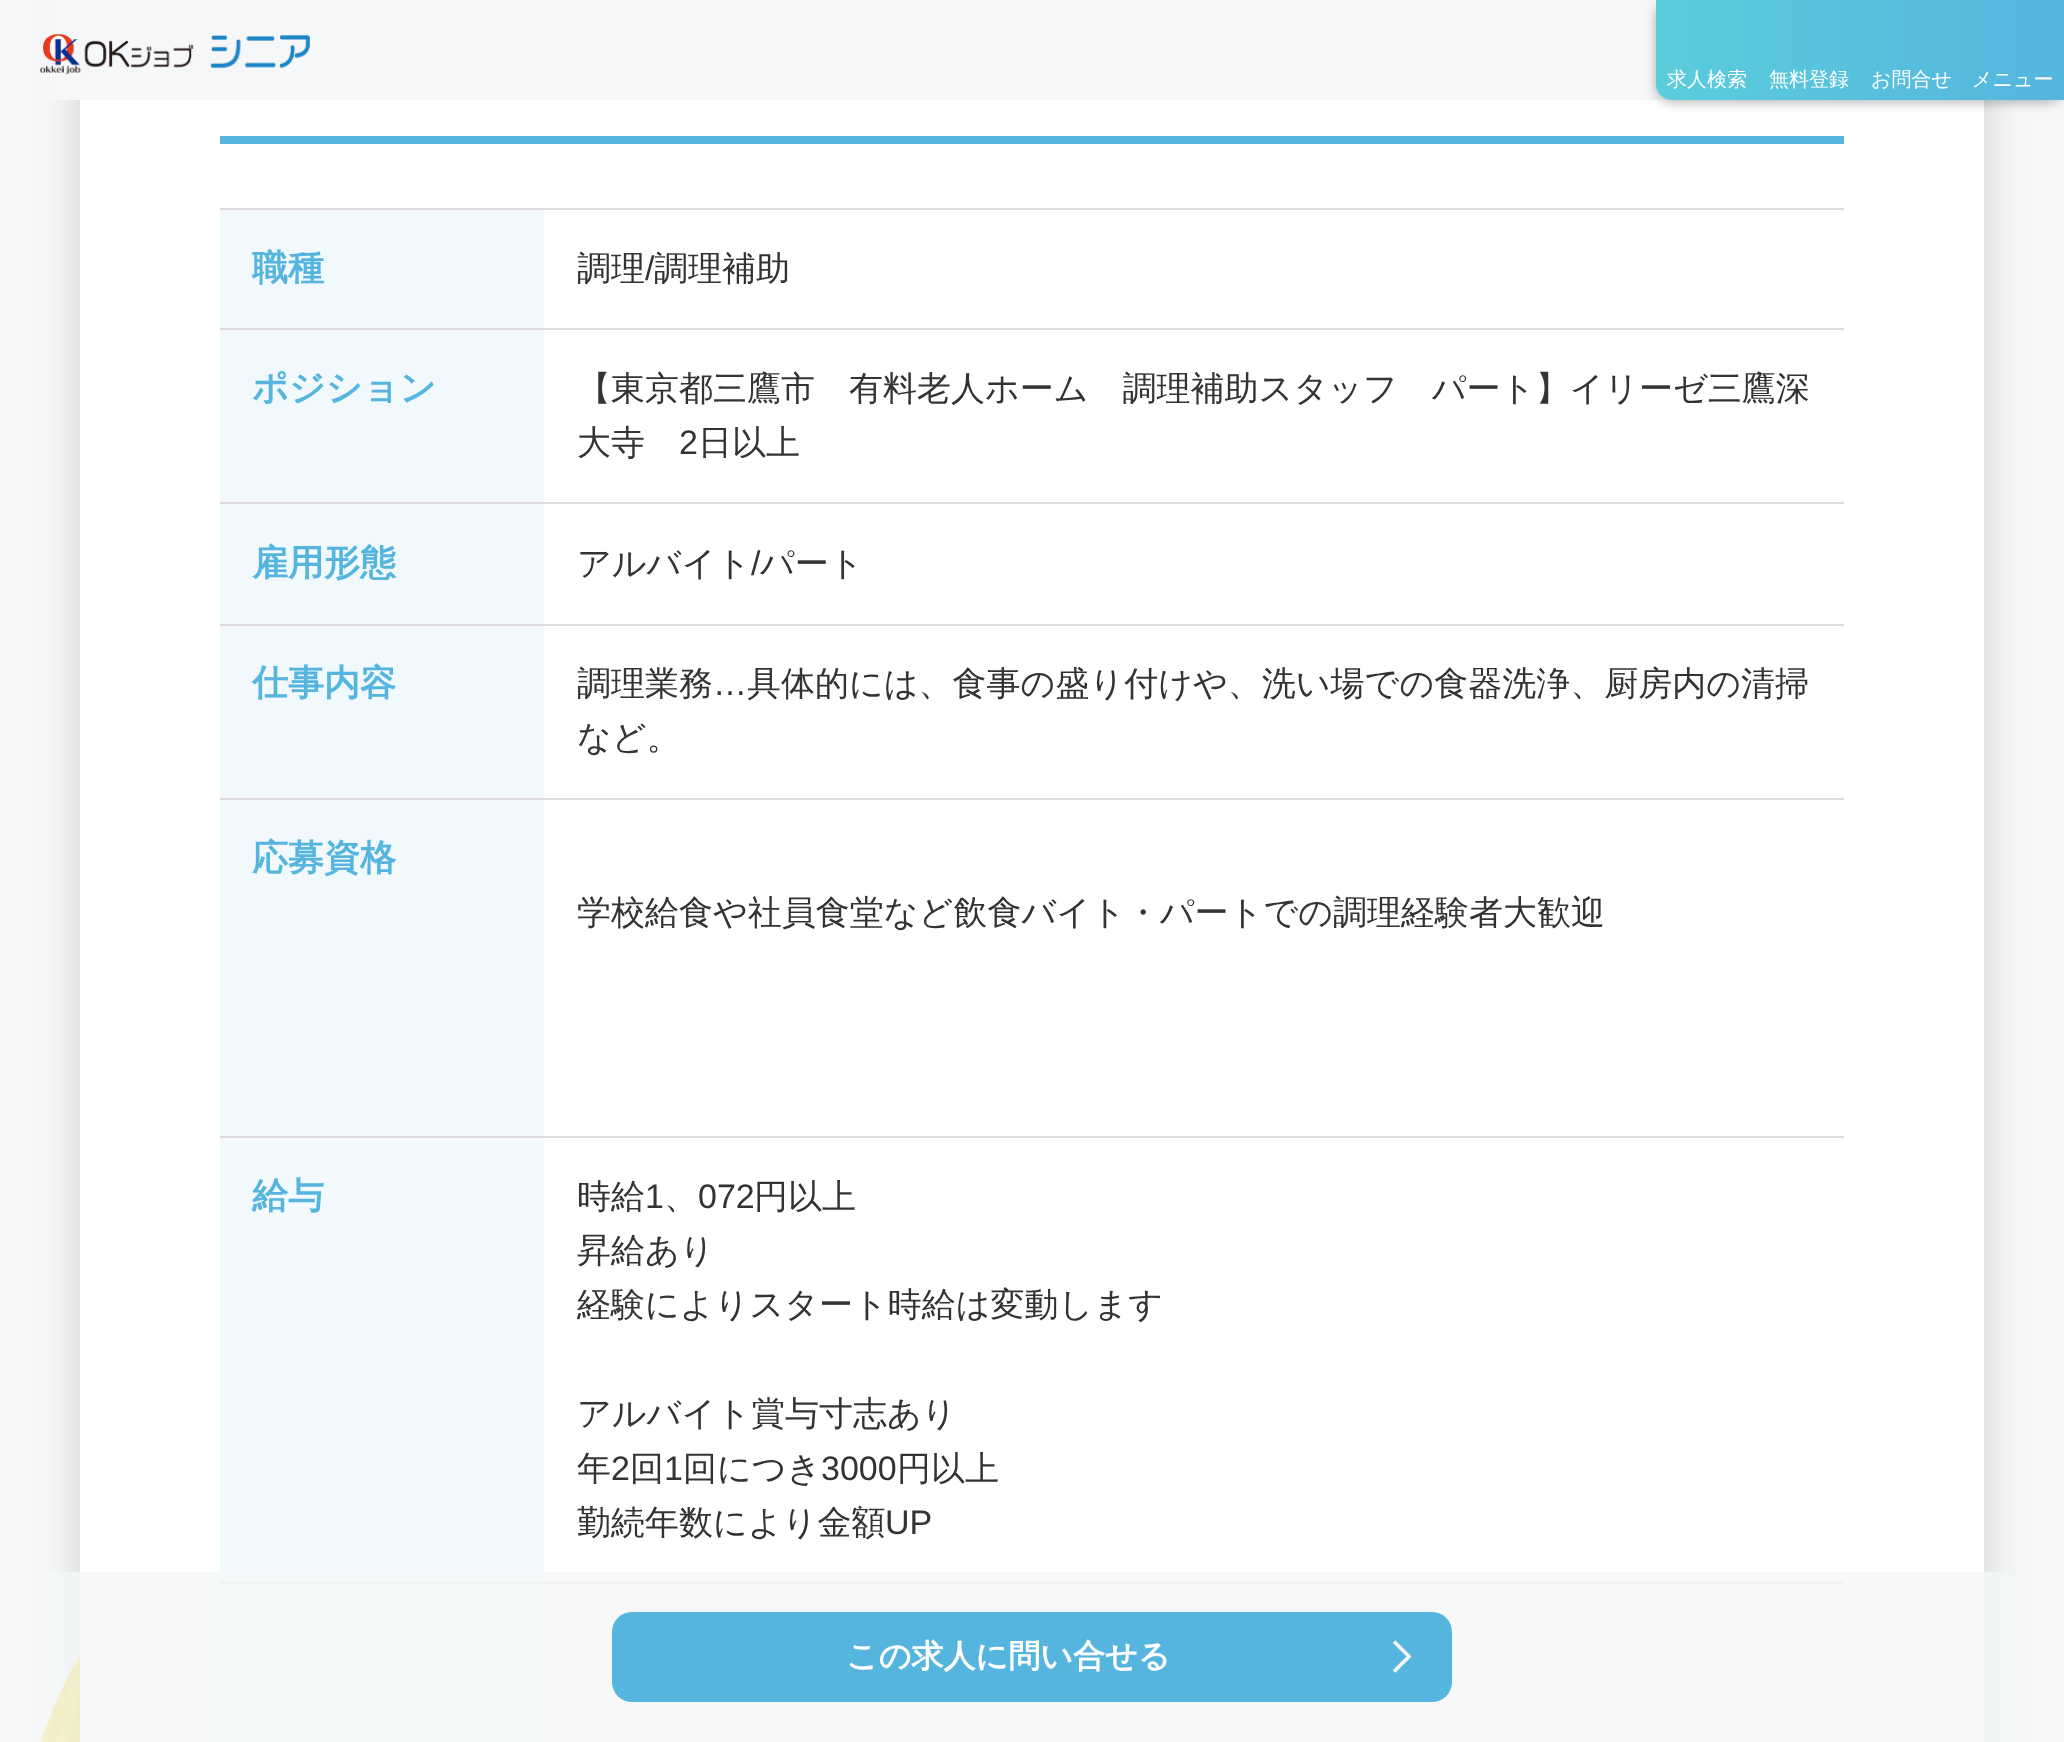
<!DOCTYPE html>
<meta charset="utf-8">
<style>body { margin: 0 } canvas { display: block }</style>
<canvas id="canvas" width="2064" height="1742"></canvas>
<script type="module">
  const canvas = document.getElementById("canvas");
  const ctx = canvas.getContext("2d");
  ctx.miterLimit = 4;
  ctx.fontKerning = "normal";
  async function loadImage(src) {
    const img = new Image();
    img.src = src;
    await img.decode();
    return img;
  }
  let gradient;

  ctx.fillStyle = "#f5f7f8";
  ctx.fillRect(0, 0, 2064, 1742);
  ctx.drawImage(await loadImage("img1.png"), 40, 195, 40, 1547);
  ctx.fillStyle = "rgba(0, 0, 0, 0.15)";
  ctx.filter = "blur(20px)";
  ctx.beginPath();
  ctx.roundRect(80, -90, 1904, 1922, 30);
  ctx.fill();
  ctx.filter = "none";
  ctx.fillStyle = "#f5f7f8";
  ctx.fillRect(50, 0, 1622, 100);
  ctx.drawImage(await loadImage("img2.png"), 40, 34, 270, 41);
  ctx.fillStyle = "#ffffff";
  ctx.fillRect(80, 100, 1904, 1642);
  ctx.fillStyle = "rgba(0, 0, 0, 0.3)";
  ctx.filter = "blur(6px)";
  ctx.beginPath();
  ctx.roundRect(1656, 2, 408, 100, 16);
  ctx.fill();
  ctx.filter = "none";
  gradient = ctx.createLinearGradient(1656, 50, 2064, 50);
  gradient.addColorStop(0, "#5acddb");
  gradient.addColorStop(1, "#55b5df");
  ctx.fillStyle = gradient;
  ctx.beginPath();
  ctx.roundRect(1656, 0, 408, 100, [0, 0, 0, 16]);
  ctx.fill();
  ctx.font = "500 20px WenQuanYi Zen Hei";
  ctx.fillStyle = "#ffffff";
  ctx.fillText("求人検索", 1667, 86);
  ctx.fillText("無料登録", 1769, 86);
  ctx.fillText("お問合せ", 1871, 86);
  ctx.fillText("メニュー", 1972, 86);
  ctx.fillStyle = "#55b5df";
  ctx.fillRect(220, 136, 1624, 8);
  ctx.fillStyle = "#dddddd";
  ctx.fillRect(220, 208, 1624, 2);
  ctx.fillStyle = "#f1f9fc";
  ctx.fillRect(220, 210, 324, 118);
  ctx.fillStyle = "#dddddd";
  ctx.fillRect(220, 328, 1624, 2);
  ctx.font = "bold 36px WenQuanYi Zen Hei";
  ctx.fillStyle = "#55b5df";
  ctx.fillText("職種", 252, 280);
  ctx.font = "500 34px WenQuanYi Zen Hei";
  ctx.fillStyle = "#333333";
  ctx.fillText("調理", 577, 280);
  ctx.font = "34px Liberation Sans";
  ctx.fillText("/", 645, 280);
  ctx.font = "500 34px WenQuanYi Zen Hei";
  ctx.fillText("調理補助", 654, 280);
  ctx.fillStyle = "#f1f9fc";
  ctx.fillRect(220, 330, 324, 172);
  ctx.fillStyle = "#dddddd";
  ctx.fillRect(220, 502, 1624, 2);
  ctx.font = "bold 36px WenQuanYi Zen Hei";
  ctx.fillStyle = "#55b5df";
  ctx.fillText("ポジション", 252, 400);
  ctx.font = "500 34px WenQuanYi Zen Hei";
  ctx.fillStyle = "#333333";
  ctx.fillText("【東京都三鷹市　有料老人ホーム　調理補助スタッフ　パート】イリーゼ三鷹深", 577, 400);
  ctx.fillText("大寺", 577, 454);
  ctx.font = "34px Liberation Sans";
  ctx.fillText("2", 679, 454);
  ctx.font = "500 34px WenQuanYi Zen Hei";
  ctx.fillText("日以上", 698, 454);
  ctx.fillStyle = "#f1f9fc";
  ctx.fillRect(220, 504, 324, 120);
  ctx.fillStyle = "#dddddd";
  ctx.fillRect(220, 624, 1624, 2);
  ctx.font = "bold 36px WenQuanYi Zen Hei";
  ctx.fillStyle = "#55b5df";
  ctx.fillText("雇用形態", 252, 575);
  ctx.font = "500 34px WenQuanYi Zen Hei";
  ctx.fillStyle = "#333333";
  ctx.fillText("アルバイト", 577, 575);
  ctx.font = "34px Liberation Sans";
  ctx.fillText("/", 751, 575);
  ctx.font = "500 34px WenQuanYi Zen Hei";
  ctx.fillText("パート", 760, 575);
  ctx.fillStyle = "#f1f9fc";
  ctx.fillRect(220, 626, 324, 172);
  ctx.fillStyle = "#dddddd";
  ctx.fillRect(220, 798, 1624, 2);
  ctx.font = "bold 36px WenQuanYi Zen Hei";
  ctx.fillStyle = "#55b5df";
  ctx.fillText("仕事内容", 252, 695);
  ctx.font = "500 34px WenQuanYi Zen Hei";
  ctx.fillStyle = "#333333";
  ctx.fillText("調理業務", 577, 695);
  ctx.font = "34px Liberation Sans";
  ctx.fillText("…", 713, 695);
  ctx.font = "500 34px WenQuanYi Zen Hei";
  ctx.fillText("具体的には、食事の盛り付けや、洗い場での食器洗浄、厨房内の清掃", 747, 695);
  ctx.fillText("など。", 577, 749);
  ctx.fillStyle = "#f2f9fd";
  ctx.fillRect(220, 800, 324, 336);
  ctx.fillStyle = "#dddddd";
  ctx.fillRect(220, 1136, 1624, 2);
  ctx.font = "bold 36px WenQuanYi Zen Hei";
  ctx.fillStyle = "#55b5df";
  ctx.fillText("応募資格", 252, 870);
  ctx.font = "500 34px WenQuanYi Zen Hei";
  ctx.fillStyle = "#333333";
  ctx.fillText("学校給食や社員食堂など飲食バイト・パートでの調理経験者大歓迎", 577, 924);
  ctx.fillStyle = "#f2fafd";
  ctx.fillRect(220, 1138, 324, 444);
  ctx.fillStyle = "#dddddd";
  ctx.fillRect(220, 1582, 1624, 2);
  ctx.font = "bold 36px WenQuanYi Zen Hei";
  ctx.fillStyle = "#55b5df";
  ctx.fillText("給与", 252, 1208);
  ctx.font = "500 34px WenQuanYi Zen Hei";
  ctx.fillStyle = "#333333";
  ctx.fillText("時給", 577, 1208);
  ctx.font = "34px Liberation Sans";
  ctx.fillText("1", 645, 1208);
  ctx.font = "500 34px WenQuanYi Zen Hei";
  ctx.fillText("、", 664, 1208);
  ctx.font = "34px Liberation Sans";
  ctx.fillText("072", 698, 1208);
  ctx.font = "500 34px WenQuanYi Zen Hei";
  ctx.fillText("円以上", 754, 1208);
  ctx.fillText("昇給あり", 577, 1262);
  ctx.fillText("経験によりスタート時給は変動します", 577, 1316);
  ctx.fillText("アルバイト賞与寸志あり", 577, 1425);
  ctx.fillText("年", 577, 1480);
  ctx.font = "34px Liberation Sans";
  ctx.fillText("2", 611, 1480);
  ctx.font = "500 34px WenQuanYi Zen Hei";
  ctx.fillText("回", 630, 1480);
  ctx.font = "34px Liberation Sans";
  ctx.fillText("1", 664, 1480);
  ctx.font = "500 34px WenQuanYi Zen Hei";
  ctx.fillText("回につき", 683, 1480);
  ctx.font = "34px Liberation Sans";
  ctx.fillText("3000", 821, 1480);
  ctx.font = "500 34px WenQuanYi Zen Hei";
  ctx.fillText("円以上", 897, 1480);
  ctx.fillText("勤続年数により金額", 577, 1534);
  ctx.font = "34px Liberation Sans";
  ctx.fillText("UP", 885, 1534);
  ctx.fillStyle = "#f1f9fc";
  ctx.fillRect(220, 1584, 324, 158);
  ctx.fillStyle = "rgba(245, 247, 248, 0.8)";
  ctx.fillRect(40, 1572, 1971, 170);
  ctx.fillStyle = "#55b5df";
  ctx.beginPath();
  ctx.roundRect(612, 1612, 840, 90, 20);
  ctx.fill();
  ctx.font = "bold 32px WenQuanYi Zen Hei";
  ctx.fillStyle = "#ffffff";
  ctx.fillText("この求人に問い合せる", 846, 1667);
  ctx.beginPath();
  ctx.moveTo(1394, 1641.5);
  ctx.lineTo(1409, 1656.5);
  ctx.lineTo(1394, 1671.5);
  ctx.strokeStyle = "#f5f5f5";
  ctx.lineWidth = 3.6;
  ctx.stroke();
</script>
